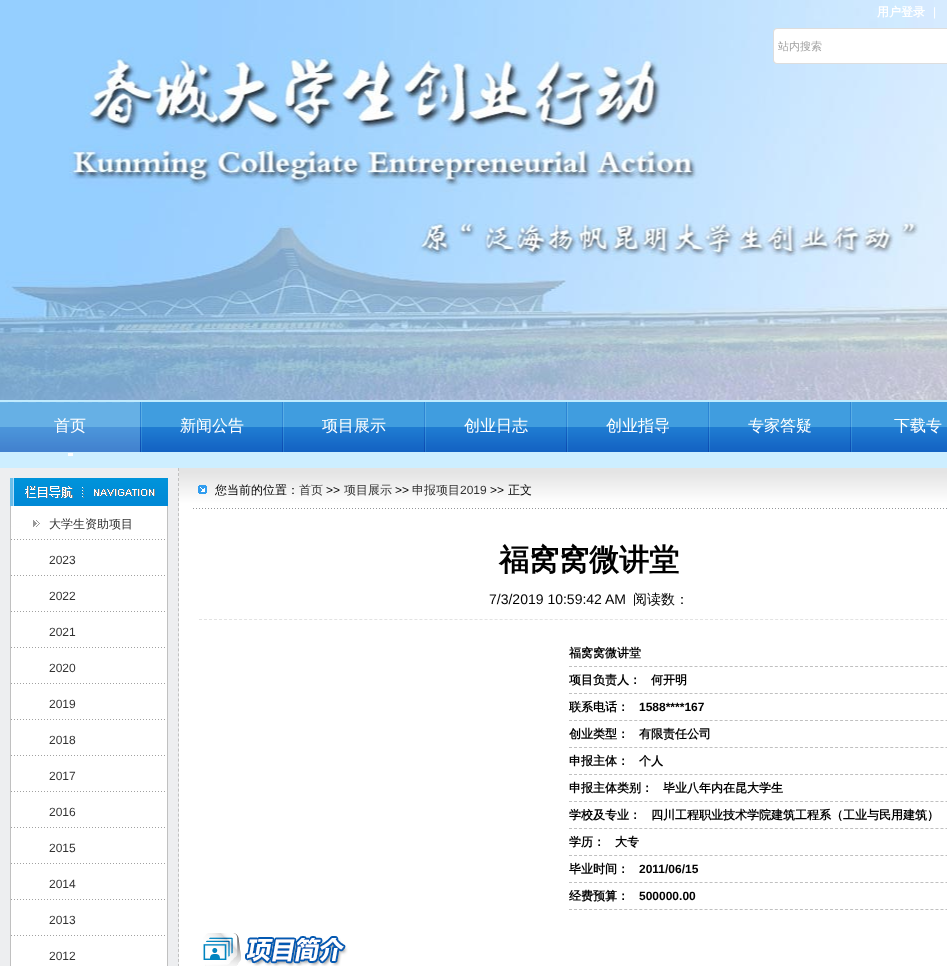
<!DOCTYPE html>
<meta charset="utf-8">
<style>body { margin: 0 } canvas { display: block }</style>
<canvas id="canvas" width="947" height="966"></canvas>
<script type="module">
  const canvas = document.getElementById("canvas");
  const ctx = canvas.getContext("2d");
  ctx.miterLimit = 4;
  ctx.fontKerning = "normal";
  async function loadImage(src) {
    const img = new Image();
    img.src = src;
    await img.decode();
    return img;
  }

  ctx.fillStyle = "#cdeeff";
  ctx.fillRect(0, 0, 947, 966);
  ctx.drawImage(await loadImage("img1.png"), 0, 400, 947, 2);
  ctx.drawImage(await loadImage("img2.png"), 0, 0, 947, 400);
  ctx.font = "bold 12px WenQuanYi Zen Hei";
  ctx.fillStyle = "#ffffff";
  ctx.fillText("用户登录", 877, 16);
  ctx.font = "12px Liberation Sans";
  ctx.fillText("|", 933, 16);
  ctx.drawImage(await loadImage("img3.png"), 773, 28, 174, 36);
  ctx.font = "500 11px WenQuanYi Zen Hei";
  ctx.fillStyle = "#a1a1a1";
  ctx.fillText("站内搜索", 778, 50);
  ctx.drawImage(await loadImage("img4.png"), 142, 402, 805, 50);
  ctx.drawImage(await loadImage("img5.png"), 140, 402, 2, 50);
  ctx.drawImage(await loadImage("img6.png"), 0, 402, 140, 50);
  ctx.fillStyle = "#ffffff";
  ctx.fillRect(68, 453, 5, 3);
  ctx.font = "500 16px WenQuanYi Zen Hei";
  ctx.fillText("首页", 54, 431);
  ctx.drawImage(await loadImage("img5.png"), 282, 402, 2, 50);
  ctx.fillText("新闻公告", 180, 431);
  ctx.drawImage(await loadImage("img5.png"), 424, 402, 2, 50);
  ctx.fillText("项目展示", 322, 431);
  ctx.drawImage(await loadImage("img5.png"), 566, 402, 2, 50);
  ctx.fillText("创业日志", 464, 431);
  ctx.drawImage(await loadImage("img5.png"), 708, 402, 2, 50);
  ctx.fillText("创业指导", 606, 431);
  ctx.drawImage(await loadImage("img5.png"), 850, 402, 2, 50);
  ctx.fillText("专家答疑", 748, 431);
  ctx.fillText("下载专", 894, 431);
  ctx.fillStyle = "#edeef0";
  ctx.fillRect(0, 468, 179, 498);
  ctx.beginPath();
  ctx.moveTo(178.5, 468);
  ctx.lineTo(178.5, 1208);
  ctx.strokeStyle = "#c0c0c0";
  ctx.setLineDash([3, 2.01]);
  ctx.stroke();
  ctx.fillStyle = "#ffffff";
  ctx.fillRect(11, 506, 156, 460);
  ctx.drawImage(await loadImage("img7.png"), 10, 478, 158, 28);
  ctx.drawImage(await loadImage("img8.png"), 11, 520, 156, 20);
  ctx.fillStyle = "#c0c0c0";
  ctx.fillRect(167, 506, 1, 460);
  ctx.fillRect(10, 506, 1, 460);
  ctx.font = "500 12px WenQuanYi Zen Hei";
  ctx.fillStyle = "#333333";
  ctx.fillText("大学生资助项目", 49, 528);
  ctx.drawImage(await loadImage("img9.png"), 11, 575, 156, 1);
  ctx.font = "12px Liberation Sans";
  ctx.fillText("2023", 49, 564);
  ctx.drawImage(await loadImage("img9.png"), 11, 611, 156, 1);
  ctx.fillText("2022", 49, 600);
  ctx.drawImage(await loadImage("img9.png"), 11, 647, 156, 1);
  ctx.fillText("2021", 49, 636);
  ctx.drawImage(await loadImage("img9.png"), 11, 683, 156, 1);
  ctx.fillText("2020", 49, 672);
  ctx.drawImage(await loadImage("img9.png"), 11, 719, 156, 1);
  ctx.fillText("2019", 49, 708);
  ctx.drawImage(await loadImage("img9.png"), 11, 755, 156, 1);
  ctx.fillText("2018", 49, 744);
  ctx.drawImage(await loadImage("img9.png"), 11, 791, 156, 1);
  ctx.fillText("2017", 49, 780);
  ctx.drawImage(await loadImage("img9.png"), 11, 827, 156, 1);
  ctx.fillText("2016", 49, 816);
  ctx.drawImage(await loadImage("img9.png"), 11, 863, 156, 1);
  ctx.fillText("2015", 49, 852);
  ctx.drawImage(await loadImage("img9.png"), 11, 899, 156, 1);
  ctx.fillText("2014", 49, 888);
  ctx.drawImage(await loadImage("img9.png"), 11, 935, 156, 1);
  ctx.fillText("2013", 49, 924);
  ctx.fillText("2012", 49, 960);
  ctx.fillStyle = "#ffffff";
  ctx.fillRect(179, 509, 768, 457);
  ctx.drawImage(await loadImage("img10.png"), 179, 468, 768, 41);
  ctx.font = "500 12px WenQuanYi Zen Hei";
  ctx.fillStyle = "#000000";
  ctx.fillText("您当前的位置：", 215, 494);
  ctx.fillStyle = "#333333";
  ctx.fillText("首页", 299, 494);
  ctx.font = "12px Liberation Sans";
  ctx.fillStyle = "#000000";
  ctx.fillText(">>", 326, 494);
  ctx.font = "500 12px WenQuanYi Zen Hei";
  ctx.fillStyle = "#333333";
  ctx.fillText("项目展示", 344, 494);
  ctx.font = "12px Liberation Sans";
  ctx.fillStyle = "#000000";
  ctx.fillText(">>", 395, 494);
  ctx.font = "500 12px WenQuanYi Zen Hei";
  ctx.fillStyle = "#333333";
  ctx.fillText("申报项目", 412, 494);
  ctx.font = "12px Liberation Sans";
  ctx.fillText("2019", 460, 494);
  ctx.fillStyle = "#000000";
  ctx.fillText(">>", 490, 494);
  ctx.font = "500 12px WenQuanYi Zen Hei";
  ctx.fillText("正文", 508, 494);
  ctx.font = "bold 30px WenQuanYi Zen Hei";
  ctx.fillText("福窝窝微讲堂", 499, 570);
  ctx.beginPath();
  ctx.moveTo(199, 619.5);
  ctx.lineTo(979, 619.5);
  ctx.strokeStyle = "#e3e3e3";
  ctx.stroke();
  ctx.font = "14px Liberation Sans";
  ctx.fillText("7/3/2019 10:59:42 AM", 489, 604);
  ctx.font = "500 14px WenQuanYi Zen Hei";
  ctx.fillText("阅读数：", 633, 604);
  ctx.beginPath();
  ctx.moveTo(569, 666.5);
  ctx.lineTo(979, 666.5);
  ctx.strokeStyle = "#c0c0c0";
  ctx.setLineDash([3, 2.02]);
  ctx.stroke();
  ctx.font = "bold 12px WenQuanYi Zen Hei";
  ctx.fillText("福窝窝微讲堂", 569, 657);
  ctx.beginPath();
  ctx.moveTo(569, 693.5);
  ctx.lineTo(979, 693.5);
  ctx.stroke();
  ctx.fillText("项目负责人：", 569, 684);
  ctx.fillText("何开明", 651, 684);
  ctx.beginPath();
  ctx.moveTo(569, 720.5);
  ctx.lineTo(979, 720.5);
  ctx.stroke();
  ctx.fillText("联系电话：", 569, 711);
  ctx.font = "bold 12px Liberation Sans";
  ctx.fillText("1588****167", 639, 711);
  ctx.beginPath();
  ctx.moveTo(569, 747.5);
  ctx.lineTo(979, 747.5);
  ctx.stroke();
  ctx.font = "bold 12px WenQuanYi Zen Hei";
  ctx.fillText("创业类型：", 569, 738);
  ctx.fillText("有限责任公司", 639, 738);
  ctx.beginPath();
  ctx.moveTo(569, 774.5);
  ctx.lineTo(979, 774.5);
  ctx.stroke();
  ctx.fillText("申报主体：", 569, 765);
  ctx.fillText("个人", 639, 765);
  ctx.beginPath();
  ctx.moveTo(569, 801.5);
  ctx.lineTo(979, 801.5);
  ctx.stroke();
  ctx.fillText("申报主体类别：", 569, 792);
  ctx.fillText("毕业八年内在昆大学生", 663, 792);
  ctx.beginPath();
  ctx.moveTo(569, 828.5);
  ctx.lineTo(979, 828.5);
  ctx.stroke();
  ctx.fillText("学校及专业：", 569, 819);
  ctx.fillText("四川工程职业技术学院建筑工程系（工业与民用建筑）", 651, 819);
  ctx.beginPath();
  ctx.moveTo(569, 855.5);
  ctx.lineTo(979, 855.5);
  ctx.stroke();
  ctx.fillText("学历：", 569, 846);
  ctx.fillText("大专", 615, 846);
  ctx.beginPath();
  ctx.moveTo(569, 882.5);
  ctx.lineTo(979, 882.5);
  ctx.stroke();
  ctx.fillText("毕业时间：", 569, 873);
  ctx.font = "bold 12px Liberation Sans";
  ctx.fillText("2011/06/15", 639, 873);
  ctx.beginPath();
  ctx.moveTo(569, 909.5);
  ctx.lineTo(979, 909.5);
  ctx.stroke();
  ctx.font = "bold 12px WenQuanYi Zen Hei";
  ctx.fillText("经费预算：", 569, 900);
  ctx.font = "bold 12px Liberation Sans";
  ctx.fillText("500000.00", 639, 900);
  ctx.drawImage(await loadImage("img11.png"), 203, 933, 145, 33);
</script>
